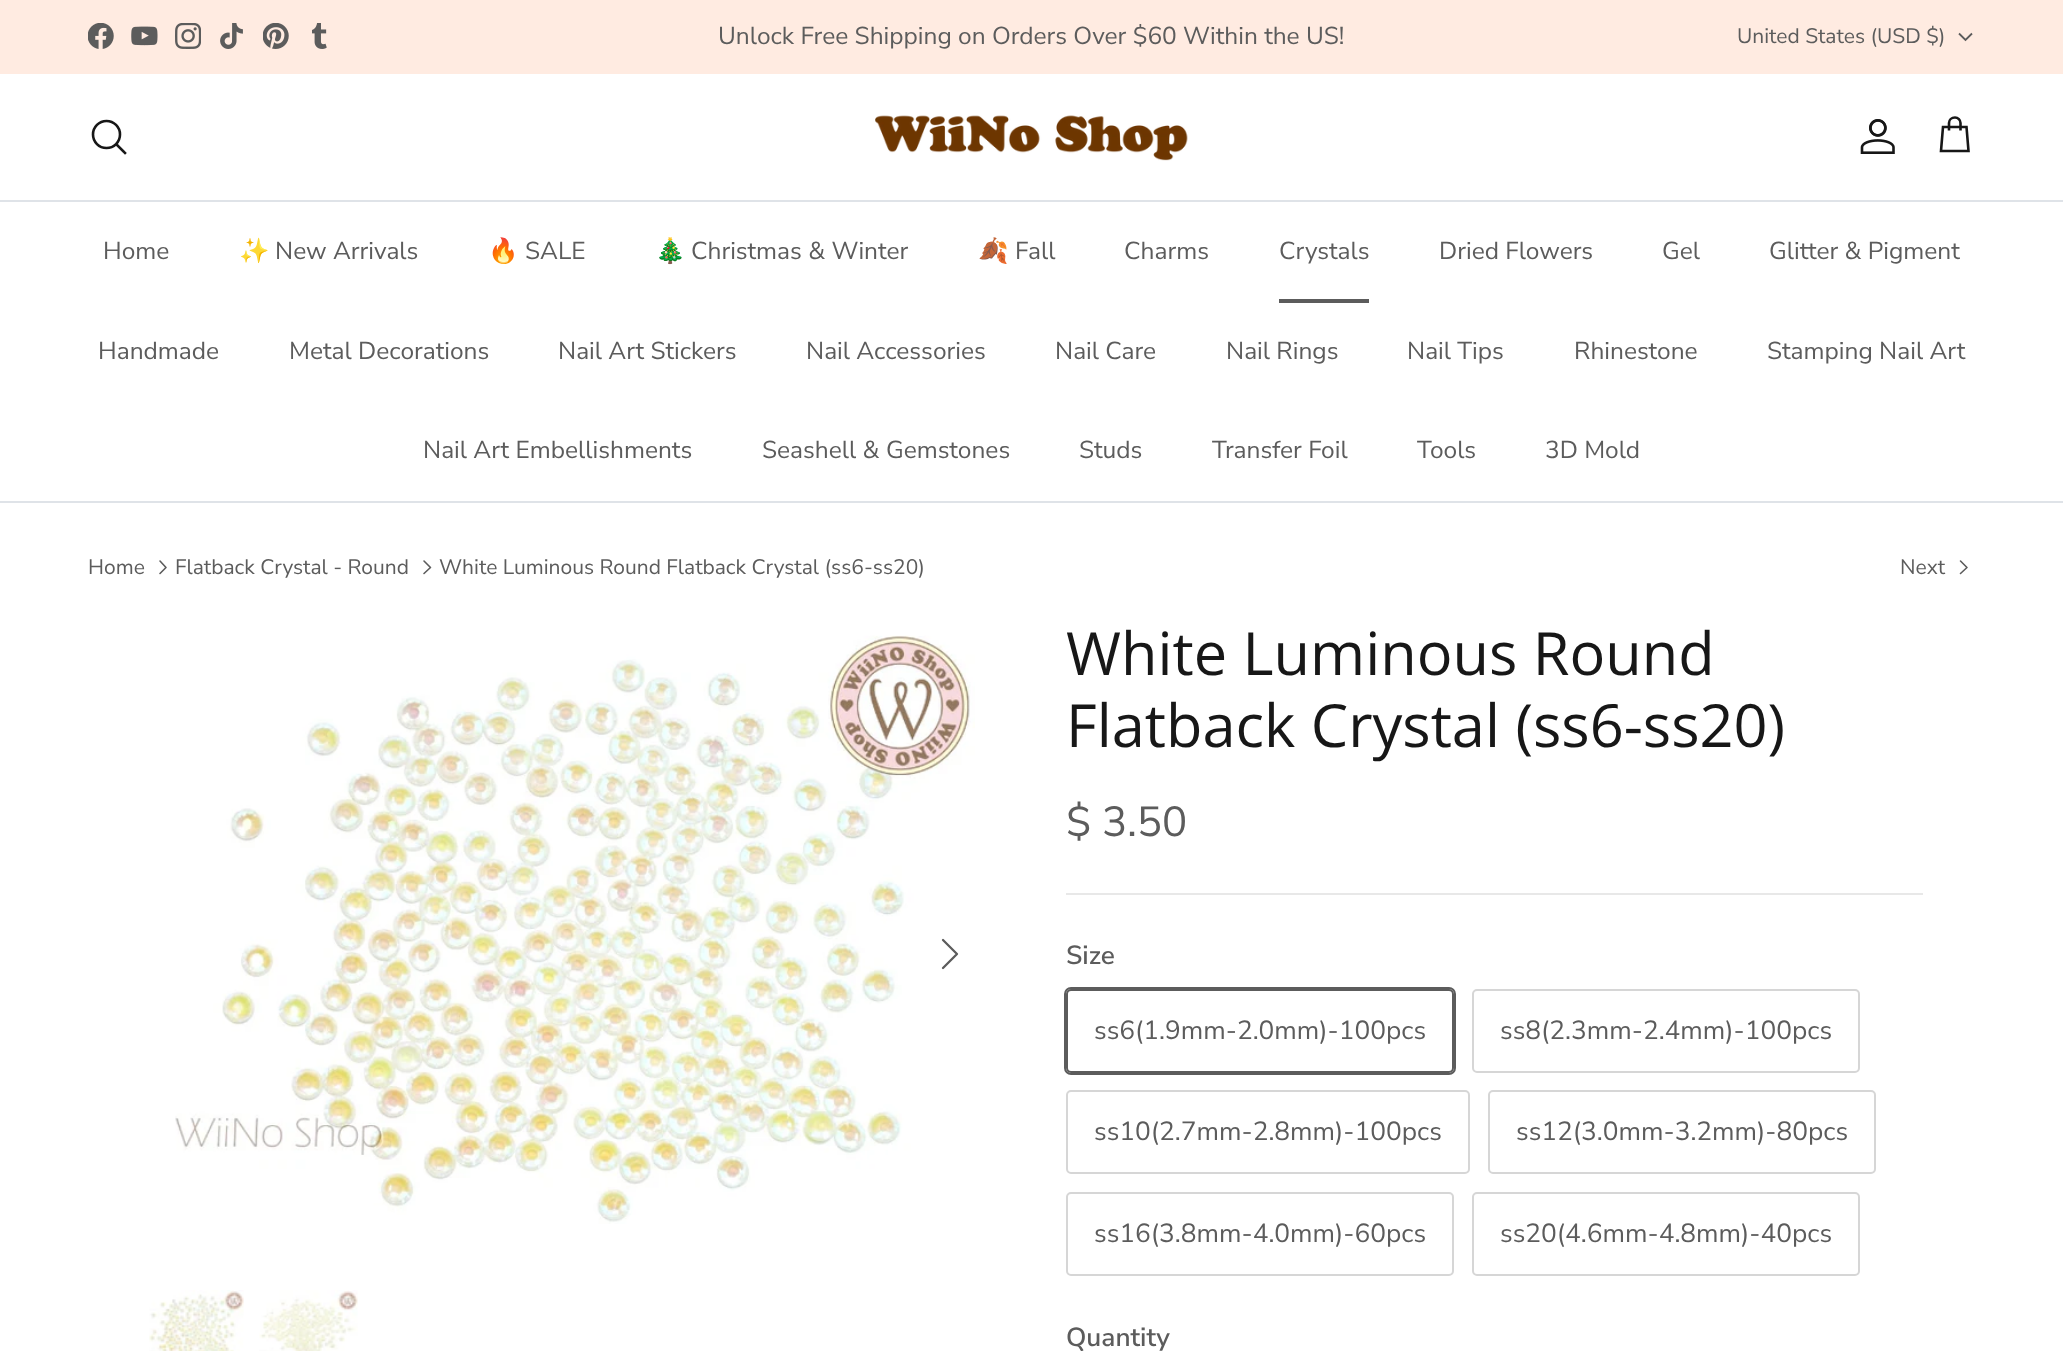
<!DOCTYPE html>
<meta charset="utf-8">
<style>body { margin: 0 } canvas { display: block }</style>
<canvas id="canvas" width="2063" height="1351"></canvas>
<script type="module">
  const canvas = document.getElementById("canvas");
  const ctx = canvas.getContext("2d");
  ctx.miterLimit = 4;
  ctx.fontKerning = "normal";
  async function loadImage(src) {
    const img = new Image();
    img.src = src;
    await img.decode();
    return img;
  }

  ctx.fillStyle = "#ffffff";
  ctx.fillRect(0, 0, 2063, 1351);
  ctx.fillStyle = "#ffebe1";
  ctx.fillRect(0, 0, 2063, 74);
  ctx.drawImage(await loadImage("img1.png"), 88, 23, 26, 26);
  ctx.drawImage(await loadImage("img2.png"), 131, 26, 27, 20);
  ctx.drawImage(await loadImage("img3.png"), 175, 23, 26, 26);
  ctx.drawImage(await loadImage("img4.png"), 220, 23, 23, 26);
  ctx.drawImage(await loadImage("img5.png"), 263, 23, 26, 26);
  ctx.drawImage(await loadImage("img6.png"), 312, 23, 15, 26);
  ctx.font = "24.5px Nunito Sans";
  ctx.fillStyle = "#5c5c5c";
  ctx.fillText("Unlock Free Shipping on Orders Over $60 Within the US!", 718, 44);
  ctx.font = "21px Nunito Sans";
  ctx.fillText("United States (USD $)", 1737, 43);
  ctx.beginPath();
  ctx.moveTo(1972, 33.5);
  ctx.lineTo(1965.5, 40);
  ctx.lineTo(1959, 33.5);
  ctx.strokeStyle = "#5c5c5c";
  ctx.lineWidth = 1.8;
  ctx.stroke();
  ctx.fillStyle = "#dfe3e8";
  ctx.fillRect(0, 200, 2063, 2);
  ctx.beginPath();
  ctx.arc(106.5, 134.5, 13.5, 0, Math.PI * 2);
  ctx.strokeStyle = "#171717";
  ctx.lineWidth = 2.6;
  ctx.stroke();
  ctx.beginPath();
  ctx.moveTo(117, 145);
  ctx.lineTo(125, 153);
  ctx.lineCap = "square";
  ctx.stroke();
  ctx.drawImage(await loadImage("img7.png"), 875, 115, 313, 46);
  ctx.drawImage(await loadImage("img8.png"), 1860, 119, 35, 35);
  ctx.beginPath();
  ctx.moveTo(1960.5, 130.5);
  ctx.lineTo(1960.5, 123);
  ctx.bezierCurveTo(1960.5, 120, 1958, 117.5, 1955, 117.5);
  ctx.bezierCurveTo(1951.5, 117.5, 1949, 120, 1949, 123);
  ctx.lineTo(1949, 130.5);
  ctx.moveTo(1943, 127);
  ctx.lineTo(1966.5, 127);
  ctx.lineTo(1968.5, 151);
  ctx.lineTo(1941, 151);
  ctx.closePath();
  ctx.lineCap = "butt";
  ctx.stroke();
  ctx.fillRect(0, 501, 2063, 2);
  ctx.font = "24.5px Nunito Sans";
  ctx.fillStyle = "#5c5c5c";
  ctx.fillText("Home", 103, 259);
  ctx.font = "24.5px Noto Color Emoji";
  ctx.fillText("✨", 239, 259);
  ctx.font = "24.5px Nunito Sans";
  ctx.fillText("New Arrivals", 275, 259);
  ctx.font = "24.5px Noto Color Emoji";
  ctx.fillText("🔥", 488, 259);
  ctx.font = "24.5px Nunito Sans";
  ctx.fillText("SALE", 525, 259);
  ctx.font = "24.5px Noto Color Emoji";
  ctx.fillText("🎄", 655, 259);
  ctx.font = "24.5px Nunito Sans";
  ctx.fillText("Christmas & Winter", 691, 259);
  ctx.font = "24.5px Noto Color Emoji";
  ctx.fillText("🍂", 978, 259);
  ctx.font = "24.5px Nunito Sans";
  ctx.fillText("Fall", 1015, 259);
  ctx.fillText("Charms", 1124, 259);
  ctx.fillText("Crystals", 1279, 259);
  ctx.fillRect(1279, 299, 90, 4);
  ctx.fillText("Dried Flowers", 1439, 259);
  ctx.fillText("Gel", 1662, 259);
  ctx.fillText("Glitter & Pigment", 1769, 259);
  ctx.fillText("Handmade", 98, 359);
  ctx.fillText("Metal Decorations", 289, 359);
  ctx.fillText("Nail Art Stickers", 558, 359);
  ctx.fillText("Nail Accessories", 806, 359);
  ctx.fillText("Nail Care", 1055, 359);
  ctx.fillText("Nail Rings", 1226, 359);
  ctx.fillText("Nail Tips", 1407, 359);
  ctx.fillText("Rhinestone", 1574, 359);
  ctx.fillText("Stamping Nail Art", 1767, 359);
  ctx.fillText("Nail Art Embellishments", 423, 458);
  ctx.fillText("Seashell & Gemstones", 762, 458);
  ctx.fillText("Studs", 1079, 458);
  ctx.fillText("Transfer Foil", 1212, 458);
  ctx.fillText("Tools", 1417, 458);
  ctx.fillText("3D Mold", 1545, 458);
  ctx.font = "21px Nunito Sans";
  ctx.fillText("Home", 88, 574);
  ctx.beginPath();
  ctx.moveTo(160, 573.5);
  ctx.lineTo(166, 567.5);
  ctx.lineTo(160, 561);
  ctx.strokeStyle = "#5c5c5c";
  ctx.lineWidth = 1.6;
  ctx.lineCap = "round";
  ctx.lineJoin = "round";
  ctx.stroke();
  ctx.fillText("Flatback Crystal - Round", 175, 574);
  ctx.beginPath();
  ctx.moveTo(424, 573.5);
  ctx.lineTo(430.5, 567.5);
  ctx.lineTo(424, 561);
  ctx.stroke();
  ctx.fillText("White Luminous Round Flatback Crystal (ss6-ss20)", 439, 574);
  ctx.fillText("Next", 1900, 574);
  ctx.beginPath();
  ctx.moveTo(1960.5, 573.5);
  ctx.lineTo(1967, 567.5);
  ctx.lineTo(1960.5, 561);
  ctx.stroke();
  ctx.drawImage(await loadImage("img9.png"), 175, 635, 800, 589);
  ctx.beginPath();
  ctx.moveTo(943, 968);
  ctx.lineTo(957, 954);
  ctx.lineTo(943, 940);
  ctx.lineWidth = 2.3;
  ctx.stroke();
  ctx.drawImage(await loadImage("img10.png"), 149, 1290, 95, 61);
  ctx.drawImage(await loadImage("img11.png"), 259, 1290, 99, 61);
  ctx.font = "59.5px Open Sans";
  ctx.fillStyle = "#171717";
  ctx.fillText("White Luminous Round", 1066, 675);
  ctx.fillText("Flatback Crystal (ss6-ss20)", 1066, 747);
  ctx.font = "42px Nunito Sans";
  ctx.fillStyle = "#5c5c5c";
  ctx.fillText("$ 3.50", 1066, 836);
  ctx.fillStyle = "#e8e8e8";
  ctx.fillRect(1066, 893, 857, 2);
  ctx.font = "600 26.25px Nunito Sans";
  ctx.fillStyle = "#5c5c5c";
  ctx.fillText("Size", 1066, 964);
  ctx.beginPath();
  ctx.roundRect(1065, 988, 390, 86, 6);
  ctx.lineWidth = 2;
  ctx.lineJoin = "miter";
  ctx.stroke();
  ctx.fillStyle = "#ffffff";
  ctx.beginPath();
  ctx.roundRect(1067, 990, 386, 82, 4);
  ctx.fill();
  ctx.stroke();
  ctx.font = "26.25px Nunito Sans";
  ctx.fillStyle = "#5c5c5c";
  ctx.fillText("ss6(1.9mm-2.0mm)-100pcs", 1094, 1039);
  ctx.beginPath();
  ctx.roundRect(1473, 990, 386, 82, 4);
  ctx.strokeStyle = "#d6d6d6";
  ctx.stroke();
  ctx.fillText("ss8(2.3mm-2.4mm)-100pcs", 1500, 1039);
  ctx.beginPath();
  ctx.roundRect(1067, 1091, 402, 82, 4);
  ctx.stroke();
  ctx.fillText("ss10(2.7mm-2.8mm)-100pcs", 1094, 1140);
  ctx.beginPath();
  ctx.roundRect(1489, 1091, 386, 82, 4);
  ctx.stroke();
  ctx.fillText("ss12(3.0mm-3.2mm)-80pcs", 1516, 1140);
  ctx.beginPath();
  ctx.roundRect(1067, 1193, 386, 82, 4);
  ctx.stroke();
  ctx.fillText("ss16(3.8mm-4.0mm)-60pcs", 1094, 1242);
  ctx.beginPath();
  ctx.roundRect(1473, 1193, 386, 82, 4);
  ctx.stroke();
  ctx.fillText("ss20(4.6mm-4.8mm)-40pcs", 1500, 1242);
  ctx.font = "600 26.25px Nunito Sans";
  ctx.fillText("Quantity", 1066, 1346);
</script>
